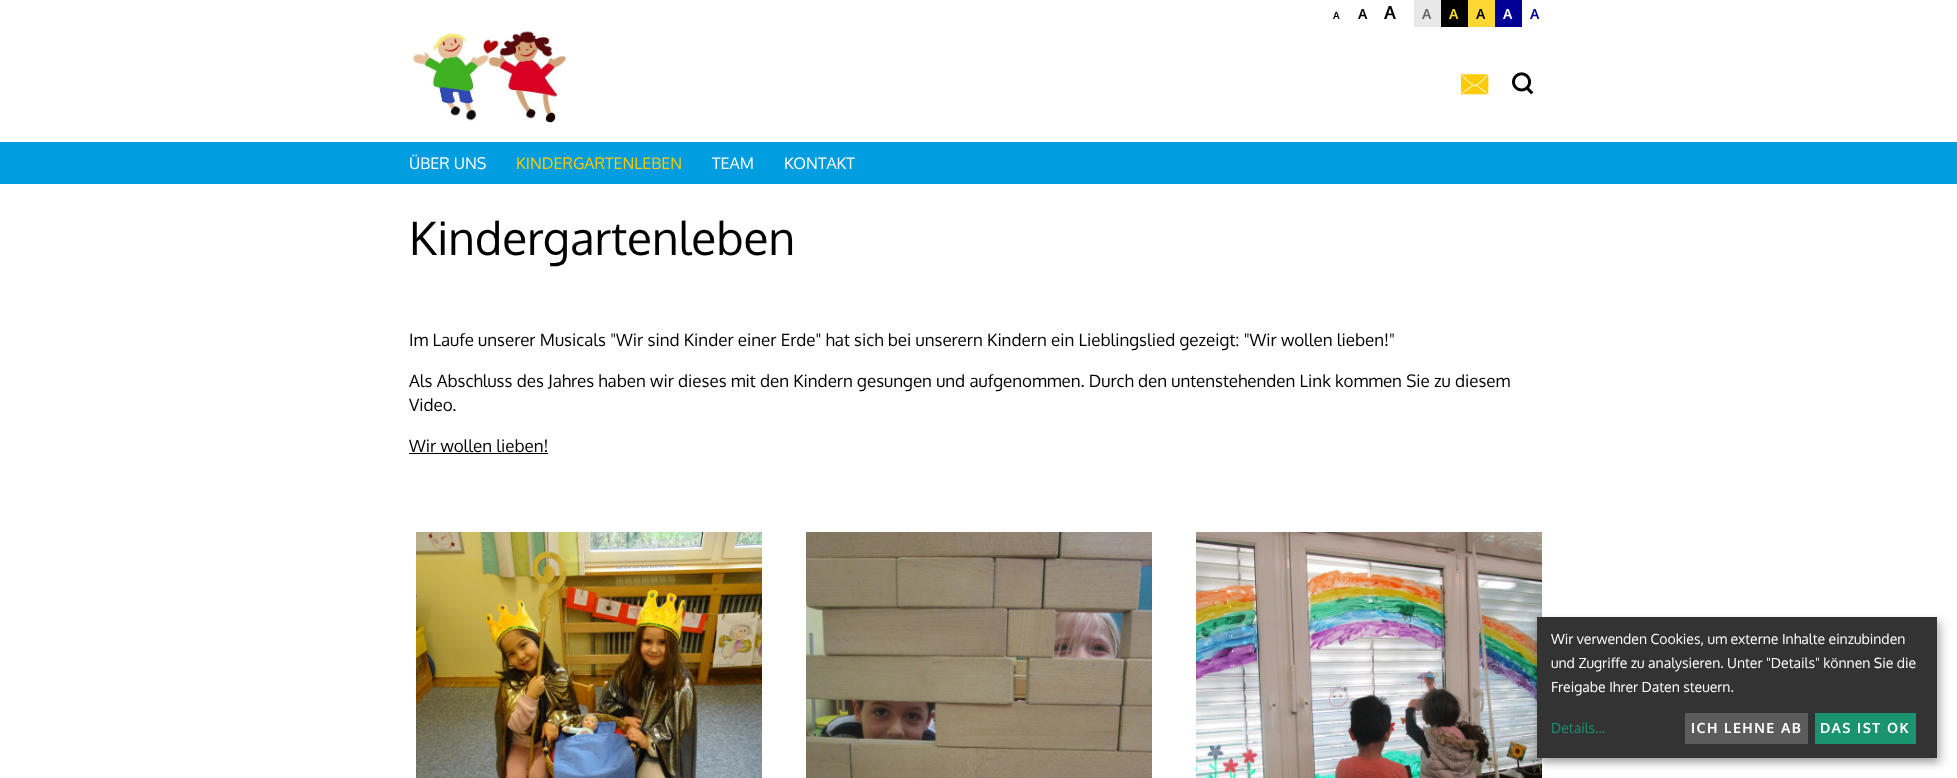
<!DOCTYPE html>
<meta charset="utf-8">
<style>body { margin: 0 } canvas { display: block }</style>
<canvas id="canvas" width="1957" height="778"></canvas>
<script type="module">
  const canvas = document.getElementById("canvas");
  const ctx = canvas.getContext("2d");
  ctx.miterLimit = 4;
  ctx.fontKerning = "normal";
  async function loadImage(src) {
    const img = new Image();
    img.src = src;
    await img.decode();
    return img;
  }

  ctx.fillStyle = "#ffffff";
  ctx.fillRect(0, 0, 1957, 778);
  ctx.font = "bold 10px Oxygen";
  ctx.fillStyle = "#000000";
  ctx.fillText("A", 1333, 19);
  ctx.font = "bold 14px Oxygen";
  ctx.fillText("A", 1358, 19);
  ctx.font = "bold 18px Oxygen";
  ctx.fillText("A", 1384, 19);
  ctx.fillStyle = "#e8e8e8";
  ctx.fillRect(1414, 0, 27, 27);
  ctx.font = "bold 14px Oxygen";
  ctx.fillStyle = "#676767";
  ctx.fillText("A", 1422, 19);
  ctx.fillStyle = "#000000";
  ctx.fillRect(1441, 0, 27, 27);
  ctx.fillStyle = "#ffd735";
  ctx.fillText("A", 1449, 19);
  ctx.fillRect(1468, 0, 27, 27);
  ctx.fillStyle = "#000000";
  ctx.fillText("A", 1476, 19);
  ctx.fillStyle = "#000094";
  ctx.fillRect(1495, 0, 27, 27);
  ctx.fillStyle = "#ffffff";
  ctx.fillText("A", 1503, 19);
  ctx.fillStyle = "#000094";
  ctx.fillText("A", 1530, 19);
  ctx.drawImage(await loadImage("img1.png"), 412, 31, 155, 92);
  ctx.drawImage(await loadImage("img2.png"), 1461, 74, 28, 21);
  ctx.drawImage(await loadImage("img3.png"), 1512, 72, 22, 23);
  ctx.fillStyle = "#009ee0";
  ctx.fillRect(0, 142, 1957, 42);
  ctx.font = "16px Oxygen";
  ctx.fillStyle = "#ffffff";
  ctx.fillText("ÜBER UNS", 409, 169);
  ctx.fillStyle = "#fdcb00";
  ctx.fillText("KINDERGARTENLEBEN", 516, 169);
  ctx.fillStyle = "#ffffff";
  ctx.fillText("TEAM", 712, 169);
  ctx.fillText("KONTAKT", 784, 169);
  ctx.font = "46px Oxygen";
  ctx.fillStyle = "#000000";
  ctx.fillText("Kindergartenleben", 409, 255);
  ctx.font = "17px Oxygen";
  ctx.fillText("Im Laufe unserer Musicals \"Wir sind Kinder einer Erde\" hat sich bei unserern Kindern ein Lieblingslied gezeigt: \"Wir wollen lieben!\"", 409, 346);
  ctx.fillText("Als Abschluss des Jahres haben wir dieses mit den Kindern gesungen und aufgenommen. Durch den untenstehenden Link kommen Sie zu diesem", 409, 387);
  ctx.fillText("Video.", 409, 411);
  ctx.fillText("Wir wollen lieben!", 409, 452);
  ctx.fillRect(409, 453, 139, 1);
  ctx.drawImage(await loadImage("img4.png"), 416, 532, 346, 246);
  ctx.drawImage(await loadImage("img5.png"), 806, 532, 346, 246);
  ctx.drawImage(await loadImage("img6.png"), 1196, 532, 346, 246);
  ctx.fillStyle = "rgba(0, 0, 0, 0.19)";
  ctx.filter = "blur(5px)";
  ctx.beginPath();
  ctx.rect(1542, 622, 400, 141);
  ctx.fill();
  ctx.filter = "none";
  ctx.fillStyle = "rgba(0, 0, 0, 0.2)";
  ctx.filter = "blur(3px)";
  ctx.beginPath();
  ctx.rect(1537, 621, 400, 141);
  ctx.fill();
  ctx.filter = "none";
  ctx.fillStyle = "#333333";
  ctx.fillRect(1537, 617, 400, 141);
  ctx.font = "14px Oxygen";
  ctx.fillStyle = "#ffffff";
  ctx.fillText("Wir verwenden Cookies, um externe Inhalte einzubinden", 1551, 644);
  ctx.fillText("und Zugriffe zu analysieren. Unter \"Details\" können Sie die", 1551, 668);
  ctx.fillText("Freigabe Ihrer Daten steuern.", 1551, 692);
  ctx.fillStyle = "#1a936f";
  ctx.fillText("Details...", 1551, 733);
  ctx.fillStyle = "#5c5c5c";
  ctx.fillRect(1685, 713, 123, 31);
  ctx.letterSpacing = "1.5px";
  ctx.font = "bold 14px Oxygen";
  ctx.fillStyle = "#ffffff";
  ctx.fillText("ICH LEHNE AB", 1691, 733);
  ctx.fillStyle = "#1a936f";
  ctx.fillRect(1815, 713, 101, 31);
  ctx.fillStyle = "#ffffff";
  ctx.fillText("DAS IST OK", 1820, 733);
</script>
